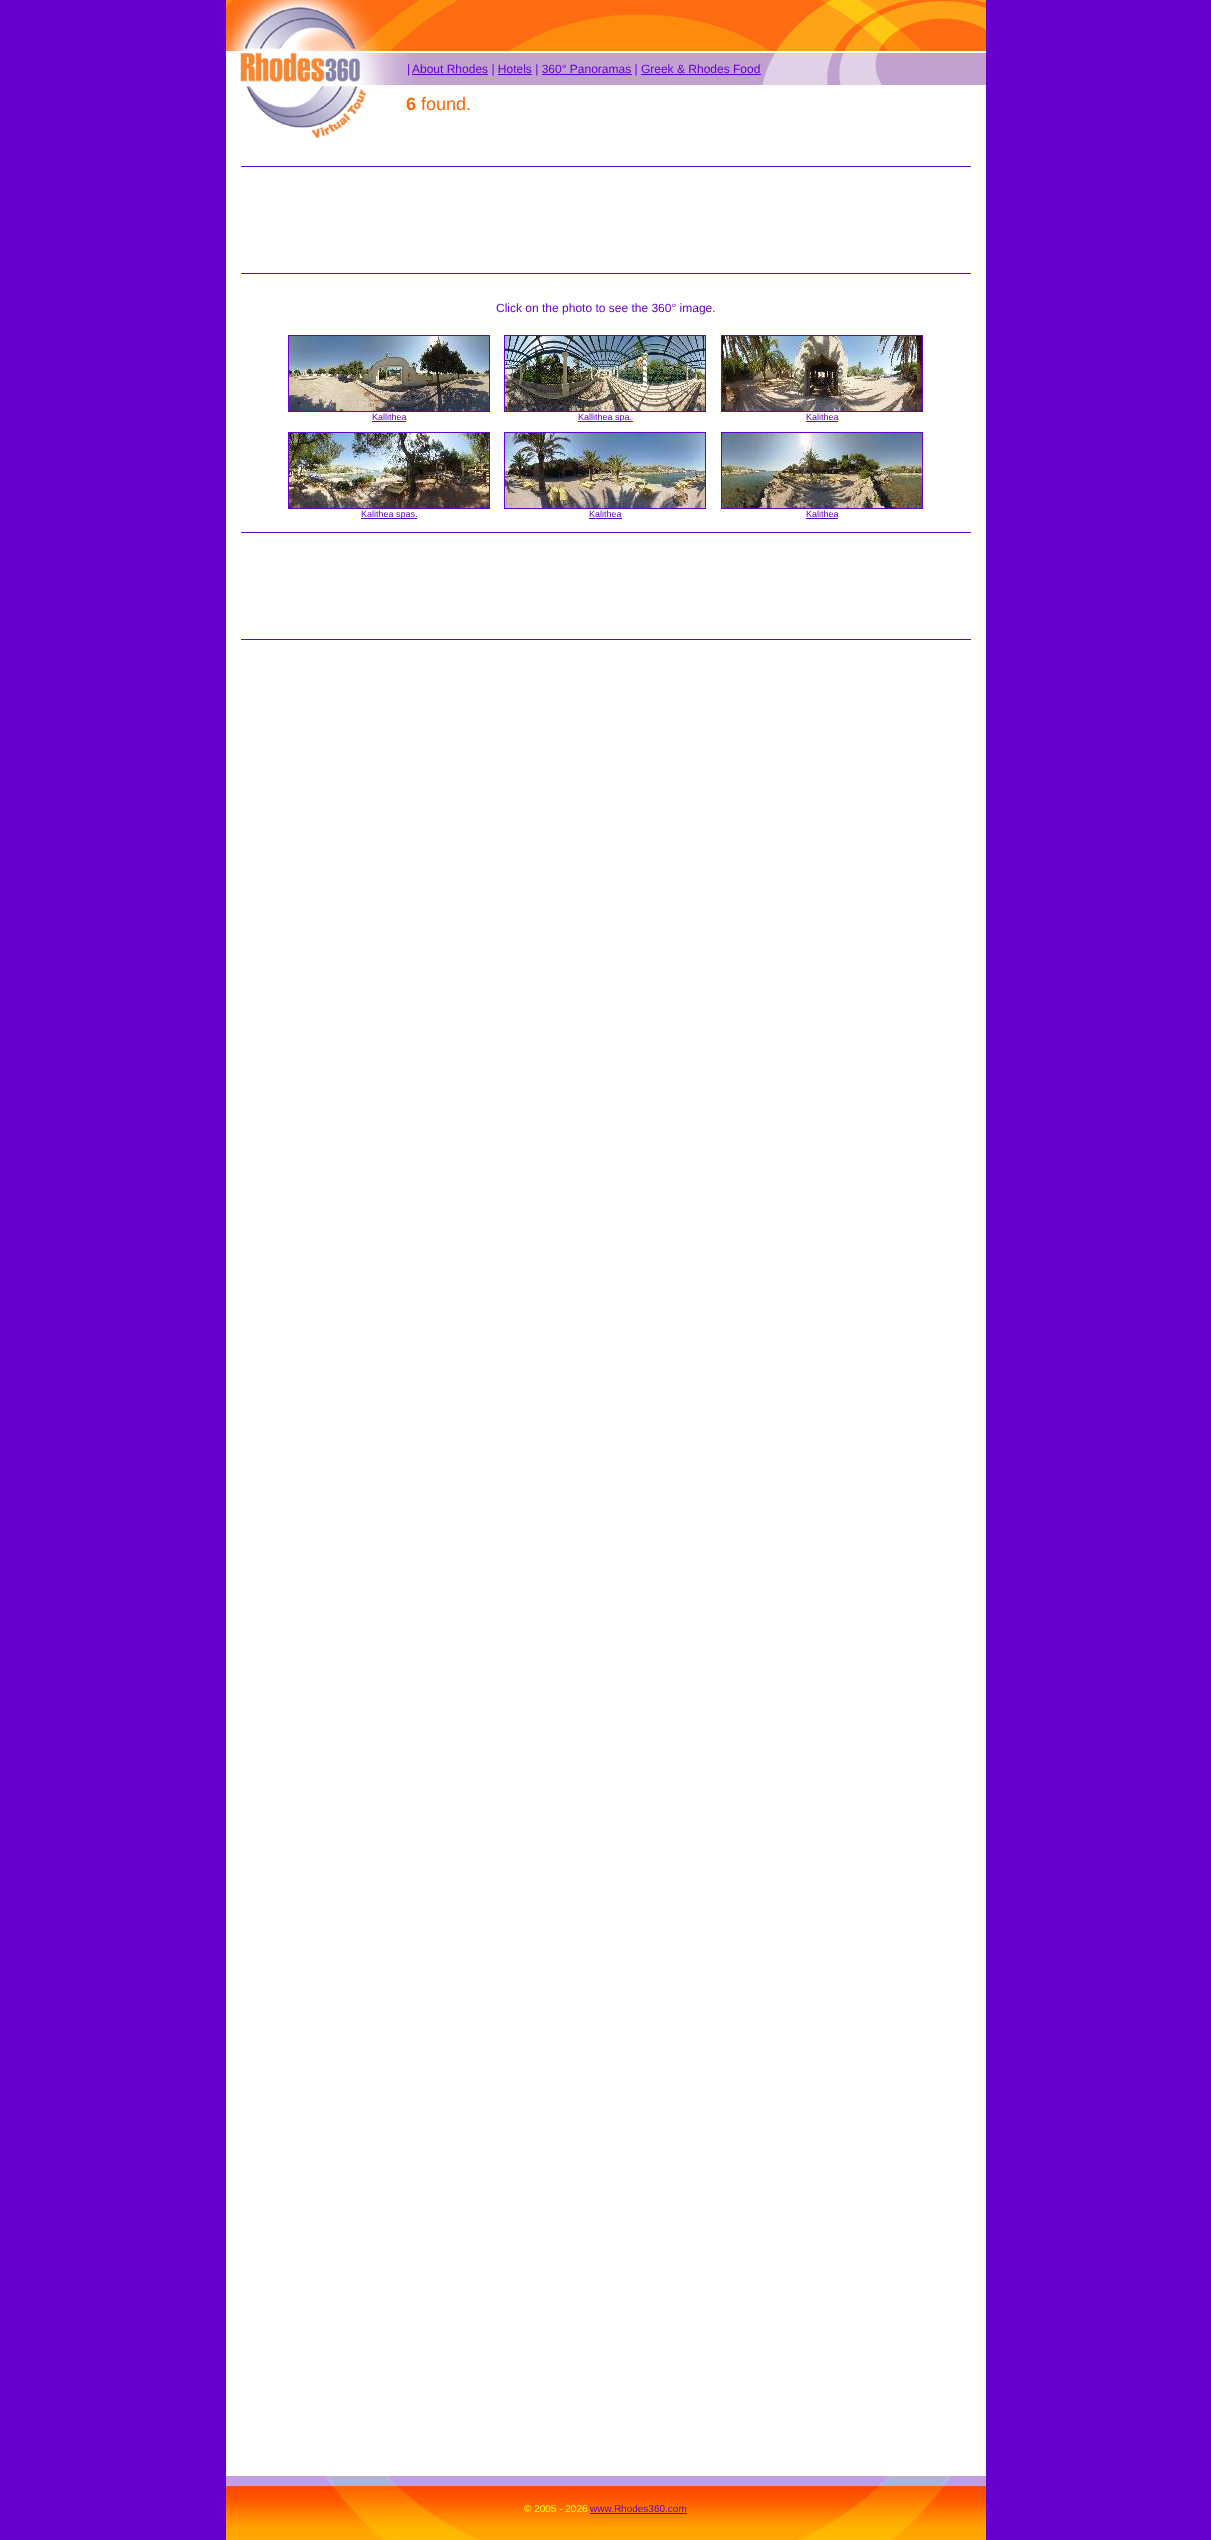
<!DOCTYPE html>
<meta charset="utf-8">
<style>body { margin: 0 } canvas { display: block }</style>
<canvas id="canvas" width="1211" height="2540"></canvas>
<script type="module">
  const canvas = document.getElementById("canvas");
  const ctx = canvas.getContext("2d");
  ctx.miterLimit = 4;
  ctx.fontKerning = "normal";
  async function loadImage(src) {
    const img = new Image();
    img.src = src;
    await img.decode();
    return img;
  }

  ctx.fillStyle = "#6600cc";
  ctx.fillRect(0, 0, 1211, 2540);
  ctx.fillStyle = "#ffffff";
  ctx.fillRect(226, 85, 760, 2391);
  ctx.drawImage(await loadImage("img1.png"), 226, 0, 140, 138);
  ctx.drawImage(await loadImage("img2.png"), 366, 0, 620, 85);
  ctx.font = "12px Liberation Sans";
  ctx.fillStyle = "#6600cc";
  ctx.fillText("|", 407, 73);
  ctx.fillRect(412, 74, 76, 1);
  ctx.fillText("About Rhodes | Hotels | 360° Panoramas | Greek & Rhodes Food", 412, 73);
  ctx.fillRect(498, 74, 34, 1);
  ctx.fillRect(542, 74, 90, 1);
  ctx.fillRect(641, 74, 120, 1);
  ctx.font = "bold 18px Liberation Sans";
  ctx.fillStyle = "#ff6600";
  ctx.fillText("6", 406, 110);
  ctx.font = "18px Liberation Sans";
  ctx.fillText("found.", 421, 110);
  ctx.fillStyle = "#6600cc";
  ctx.fillRect(241, 166, 730, 1);
  ctx.fillRect(241, 273, 730, 1);
  ctx.font = "12px Liberation Sans";
  ctx.fillText("Click on the photo to see the 360° image.", 496, 312);
  ctx.strokeStyle = "#6600cc";
  ctx.strokeRect(288.5, 335.5, 201, 76);
  ctx.drawImage(await loadImage("img3.png"), 289, 336, 200, 75);
  ctx.font = "9px Liberation Sans";
  ctx.fillText("Kallithea", 372, 420);
  ctx.fillRect(372, 421, 34, 1);
  ctx.strokeRect(504.5, 335.5, 201, 76);
  ctx.drawImage(await loadImage("img4.png"), 505, 336, 200, 75);
  ctx.fillRect(578, 421, 55, 1);
  ctx.fillText("Kallithea spa.", 578, 420);
  ctx.strokeRect(721.5, 335.5, 201, 76);
  ctx.drawImage(await loadImage("img5.png"), 722, 336, 200, 75);
  ctx.fillText("Kalithea", 806, 420);
  ctx.fillRect(806, 421, 32, 1);
  ctx.strokeRect(288.5, 432.5, 201, 76);
  ctx.drawImage(await loadImage("img6.png"), 289, 433, 200, 75);
  ctx.fillRect(361, 518, 56, 1);
  ctx.fillText("Kalithea spas.", 361, 517);
  ctx.strokeRect(504.5, 432.5, 201, 76);
  ctx.drawImage(await loadImage("img7.png"), 505, 433, 200, 75);
  ctx.fillText("Kalithea", 589, 517);
  ctx.fillRect(589, 518, 33, 1);
  ctx.strokeRect(721.5, 432.5, 201, 76);
  ctx.drawImage(await loadImage("img8.png"), 722, 433, 200, 75);
  ctx.fillText("Kalithea", 806, 517);
  ctx.fillRect(806, 518, 32, 1);
  ctx.fillRect(241, 532, 730, 1);
  ctx.fillRect(241, 639, 730, 1);
  ctx.drawImage(await loadImage("img9.png"), 226, 2476, 760, 64);
  ctx.font = "10px Liberation Sans";
  ctx.fillStyle = "#ffff00";
  ctx.fillText("© 2005 - 2026", 524, 2512);
  ctx.fillStyle = "#6600cc";
  ctx.fillText("www.Rhodes360.com", 590, 2512);
  ctx.fillRect(590, 2513, 97, 1);
</script>
